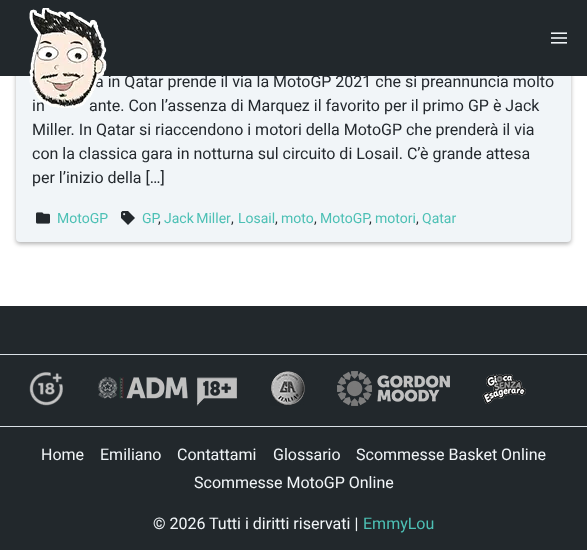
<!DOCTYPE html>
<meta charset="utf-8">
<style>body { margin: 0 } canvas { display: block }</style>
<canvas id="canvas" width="587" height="550"></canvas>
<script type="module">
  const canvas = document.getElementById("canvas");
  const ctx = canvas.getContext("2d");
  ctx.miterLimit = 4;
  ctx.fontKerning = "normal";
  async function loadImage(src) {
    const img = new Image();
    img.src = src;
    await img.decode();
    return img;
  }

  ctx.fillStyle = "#ffffff";
  ctx.fillRect(0, 0, 587, 550);
  ctx.fillStyle = "rgba(0, 0, 0, 0.3)";
  ctx.filter = "blur(2px)";
  ctx.beginPath();
  ctx.roundRect(16, -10, 555, 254, 4);
  ctx.fill();
  ctx.filter = "none";
  ctx.fillStyle = "#f1f5f8";
  ctx.beginPath();
  ctx.roundRect(16, -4, 555, 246, 4);
  ctx.fill();
  ctx.font = "16px Roboto";
  ctx.fillStyle = "#23282d";
  ctx.fillText("a in Qatar prende il via la MotoGP 2021 che si preannuncia molto", 95, 87);
  ctx.fillStyle = "#22282c";
  ctx.fillRect(0, 0, 587, 76);
  ctx.fillStyle = "#23282d";
  ctx.fillText("in", 32, 111);
  ctx.fillText("ante. Con l’assenza di Marquez il favorito per il primo GP è Jack", 89, 111);
  ctx.drawImage(await loadImage("img1.png"), 29, 8, 78, 100);
  ctx.drawImage(await loadImage("img2.png"), 551, 32, 16, 12);
  ctx.fillText("Miller. In Qatar si riaccendono i motori della MotoGP che prenderà il via", 32, 135);
  ctx.fillText("con la classica gara in notturna sul circuito di Losail. C’è grande attesa", 32, 159);
  ctx.fillText("per l’inizio della […]", 32, 183);
  ctx.drawImage(await loadImage("img3.png"), 36, 212, 14, 12);
  ctx.font = "14px Roboto";
  ctx.fillStyle = "#4dc0b5";
  ctx.fillText("MotoGP", 57, 223);
  ctx.drawImage(await loadImage("img4.png"), 121, 211, 14, 14);
  ctx.fillText("GP", 142, 223);
  ctx.wordSpacing = "-1px";
  ctx.fillText("Jack Miller", 164, 223);
  ctx.wordSpacing = "0px";
  ctx.fillText("Losail", 238, 223);
  ctx.fillText("moto", 281, 223);
  ctx.fillText("MotoGP", 320, 223);
  ctx.fillText("motori", 375, 223);
  ctx.fillText("Qatar", 422, 223);
  ctx.fillStyle = "#23282d";
  ctx.fillText(",", 158, 223);
  ctx.fillText(",", 231, 223);
  ctx.fillText(",", 275, 223);
  ctx.fillText(",", 314, 223);
  ctx.fillText(",", 369, 223);
  ctx.fillText(",", 416, 223);
  ctx.fillStyle = "#22282c";
  ctx.fillRect(0, 306, 587, 244);
  ctx.fillStyle = "#dae1e7";
  ctx.fillRect(0, 354, 587, 1);
  ctx.fillRect(0, 426, 587, 1);
  ctx.drawImage(await loadImage("img5.png"), 29, 372, 34, 34);
  ctx.drawImage(await loadImage("img6.png"), 98, 377, 139, 29);
  ctx.drawImage(await loadImage("img7.png"), 270, 371, 35, 35);
  ctx.drawImage(await loadImage("img8.png"), 337, 371, 113, 35);
  ctx.drawImage(await loadImage("img9.png"), 482, 374, 44, 30);
  ctx.font = "16px Roboto";
  ctx.fillStyle = "#f1f5f8";
  ctx.fillText("Home", 41, 460);
  ctx.fillText("Emiliano", 100, 460);
  ctx.fillText("Contattami", 177, 460);
  ctx.fillText("Glossario", 273, 460);
  ctx.fillText("Scommesse Basket Online", 356, 460);
  ctx.fillText("Scommesse MotoGP Online", 194, 488);
  ctx.fillText("© 2026", 153, 529);
  ctx.fillText("Tutti i diritti riservati |", 209, 529);
  ctx.fillStyle = "#4dc0b5";
  ctx.fillText("EmmyLou", 363, 529);
</script>
